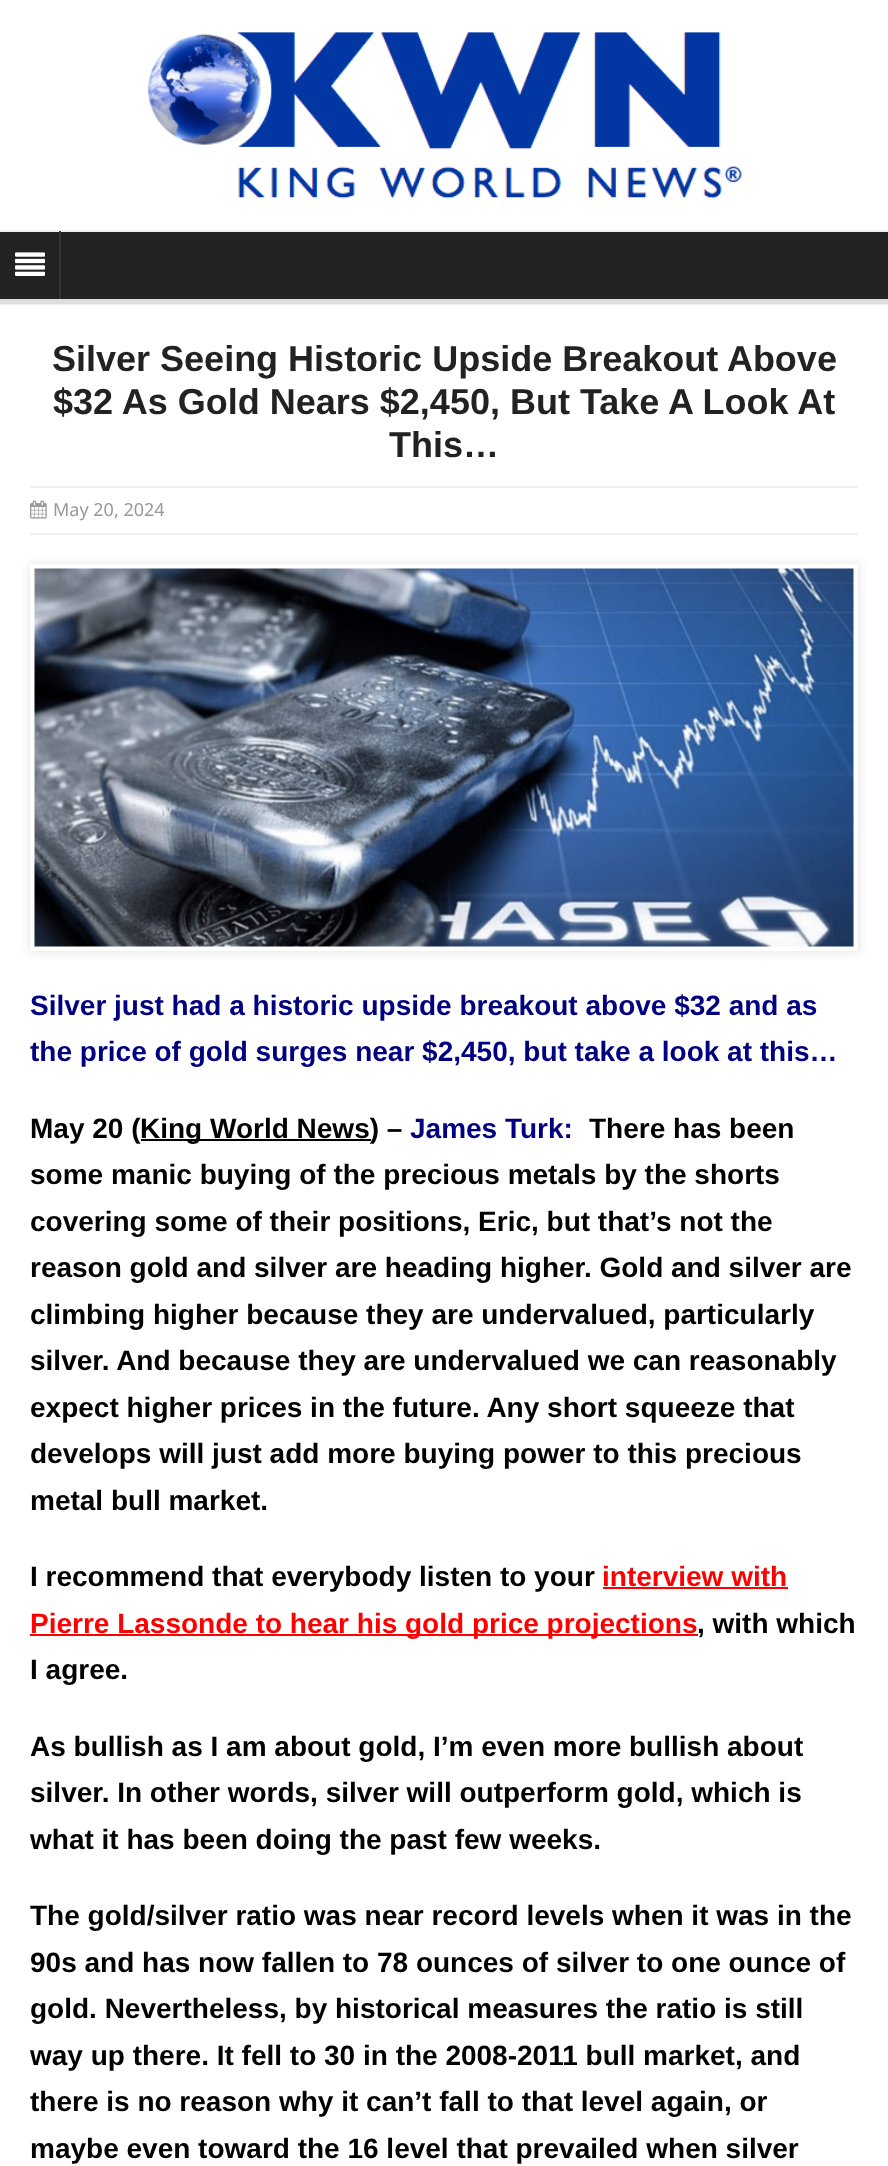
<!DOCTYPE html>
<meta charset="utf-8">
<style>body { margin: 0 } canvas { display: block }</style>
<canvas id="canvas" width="888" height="2166"></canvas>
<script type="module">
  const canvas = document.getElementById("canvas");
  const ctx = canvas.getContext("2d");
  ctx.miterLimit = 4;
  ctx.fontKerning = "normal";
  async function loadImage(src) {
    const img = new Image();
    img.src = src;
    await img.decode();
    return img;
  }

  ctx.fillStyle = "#ffffff";
  ctx.fillRect(0, 0, 888, 2166);
  ctx.drawImage(await loadImage("img1.png"), 148, 32, 594, 167);
  ctx.fillStyle = "#222222";
  ctx.fillRect(0, 232, 888, 67);
  ctx.fillStyle = "#f0f0f0";
  ctx.fillRect(0, 230, 888, 2);
  ctx.fillStyle = "#dddddd";
  ctx.fillRect(0, 299, 888, 5);
  ctx.fillStyle = "#333333";
  ctx.fillRect(59, 231, 2, 68);
  ctx.drawImage(await loadImage("img2.png"), 15, 252, 30, 24);
  ctx.fillStyle = "#f0f0f0";
  ctx.fillRect(0, 304, 888, 1);
  ctx.font = "bold 36px Liberation Sans";
  ctx.fillStyle = "#222222";
  ctx.fillText("Silver Seeing Historic Upside Breakout Above", 52, 371);
  ctx.fillText("$32 As Gold Nears $2,450, But Take A Look At", 53, 414);
  ctx.fillText("This…", 389, 457);
  ctx.fillStyle = "#f0f0f0";
  ctx.fillRect(30, 486, 828, 2);
  ctx.fillRect(30, 533, 828, 2);
  ctx.drawImage(await loadImage("img3.png"), 30, 500, 17, 19);
  ctx.font = "18px Noto Sans";
  ctx.fillStyle = "#999999";
  ctx.fillText("May 20, 2024", 53, 516);
  ctx.save();
  ctx.beginPath();
  ctx.moveTo(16, 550);
  ctx.lineTo(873, 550);
  ctx.lineTo(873, 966);
  ctx.lineTo(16, 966);
  ctx.closePath();
  ctx.moveTo(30, 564);
  ctx.lineTo(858, 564);
  ctx.lineTo(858, 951);
  ctx.lineTo(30, 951);
  ctx.closePath();
  ctx.clip("evenodd");
  ctx.fillStyle = "rgba(34, 34, 34, 0.1)";
  ctx.filter = "blur(4px)";
  ctx.beginPath();
  ctx.rect(29, 563, 831, 390);
  ctx.fill();
  ctx.filter = "none";
  ctx.restore();
  ctx.drawImage(await loadImage("img4.png"), 34, 568, 820, 379);
  ctx.font = "bold 28px Liberation Sans";
  ctx.fillStyle = "#000080";
  ctx.fillText("Silver just had a historic upside breakout above $32 and as", 30, 1015);
  ctx.fillText("the price of gold surges near $2,450, but take a look at this…", 30, 1061);
  ctx.fillStyle = "#000000";
  ctx.fillText("May 20 (", 30, 1138);
  ctx.fillRect(141, 1139, 230, 2);
  ctx.fillText("King World News) –", 140, 1138);
  ctx.fillStyle = "#000080";
  ctx.fillText("James Turk:", 410, 1138);
  ctx.fillStyle = "#000000";
  ctx.fillText("There has been", 589, 1138);
  ctx.fillText("some manic buying of the precious metals by the shorts", 30, 1184);
  ctx.fillText("covering some of their positions, Eric, but that’s not the", 30, 1231);
  ctx.fillText("reason gold and silver are heading higher. Gold and silver are", 30, 1277);
  ctx.fillText("climbing higher because they are undervalued, particularly", 30, 1324);
  ctx.fillText("silver. And because they are undervalued we can reasonably", 30, 1370);
  ctx.fillText("expect higher prices in the future. Any short squeeze that", 30, 1417);
  ctx.fillText("develops will just add more buying power to this precious", 30, 1463);
  ctx.fillText("metal bull market.", 30, 1510);
  ctx.fillText("I recommend that everybody listen to your", 30, 1586);
  ctx.fillStyle = "#ff0000";
  ctx.fillText("interview with", 602, 1586);
  ctx.fillRect(603, 1587, 185, 2);
  ctx.fillRect(30, 1634, 668, 2);
  ctx.fillText("Pierre Lassonde to hear his gold price projections", 30, 1633);
  ctx.fillStyle = "#000000";
  ctx.fillText(", with which", 697, 1633);
  ctx.fillText("I agree.", 30, 1679);
  ctx.fillText("As bullish as I am about gold, I’m even more bullish about", 30, 1756);
  ctx.fillText("silver. In other words, silver will outperform gold, which is", 30, 1802);
  ctx.fillText("what it has been doing the past few weeks.", 30, 1849);
  ctx.fillText("The gold/silver ratio was near record levels when it was in the", 30, 1925);
  ctx.fillText("90s and has now fallen to 78 ounces of silver to one ounce of", 30, 1972);
  ctx.fillText("gold. Nevertheless, by historical measures the ratio is still", 30, 2018);
  ctx.fillText("way up there. It fell to 30 in the 2008-2011 bull market, and", 30, 2065);
  ctx.fillText("there is no reason why it can’t fall to that level again, or", 30, 2111);
  ctx.fillText("maybe even toward the 16 level that prevailed when silver", 30, 2158);
</script>
